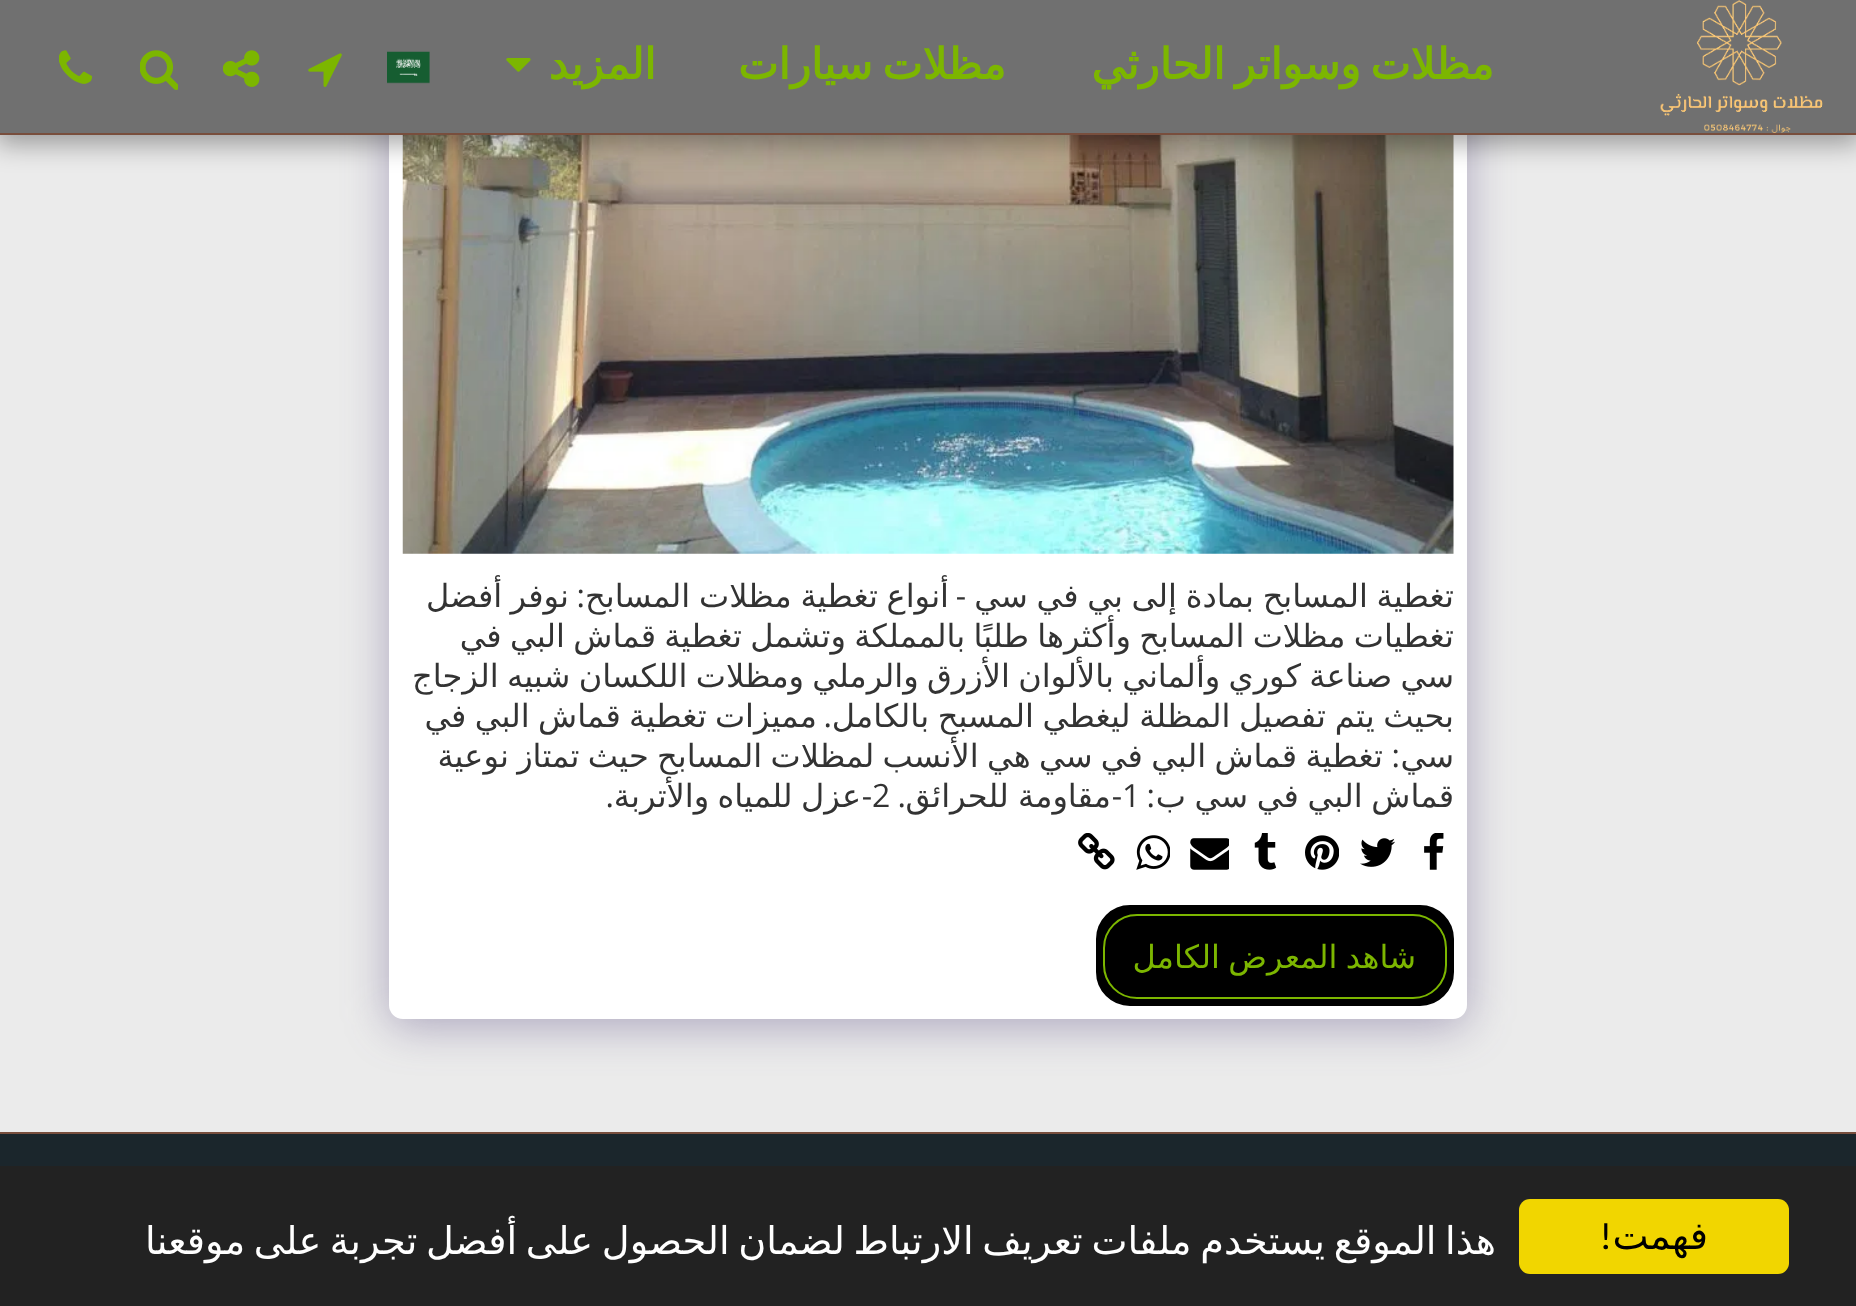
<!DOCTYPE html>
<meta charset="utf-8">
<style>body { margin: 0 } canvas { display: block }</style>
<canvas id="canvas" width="1856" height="1306"></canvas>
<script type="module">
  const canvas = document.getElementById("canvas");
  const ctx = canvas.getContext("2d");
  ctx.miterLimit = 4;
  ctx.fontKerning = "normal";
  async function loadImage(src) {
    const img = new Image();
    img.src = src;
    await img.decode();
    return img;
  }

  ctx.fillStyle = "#784e3d";
  ctx.fillRect(0, 0, 1856, 1306);
  ctx.fillStyle = "#ebebeb";
  ctx.fillRect(0, 135, 1856, 997);
  ctx.fillStyle = "rgba(77, 63, 122, 0.4)";
  ctx.filter = "blur(22.5px)";
  ctx.beginPath();
  ctx.roundRect(389, -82, 1078, 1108, 14);
  ctx.fill();
  ctx.filter = "none";
  ctx.fillStyle = "#ffffff";
  ctx.beginPath();
  ctx.roundRect(389, -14, 1078, 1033, 14);
  ctx.fill();
  ctx.drawImage(await loadImage("img8.png"), 402, 135, 1052, 419);
  ctx.fillStyle = "rgba(0, 0, 0, 0.35)";
  ctx.filter = "blur(13.5px)";
  ctx.beginPath();
  ctx.rect(-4, 0, 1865, 144);
  ctx.fill();
  ctx.filter = "none";
  ctx.fillStyle = "#707070";
  ctx.fillRect(0, 0, 1856, 133);
  ctx.fillStyle = "#784e3d";
  ctx.fillRect(0, 133, 1856, 2);
  ctx.drawImage(await loadImage("img1.png"), 1660, 0, 163, 133);
  ctx.letterSpacing = "1.1px";
  ctx.wordSpacing = "-5px";
  ctx.direction = "rtl";
  ctx.font = "bold 42.75px DejaVu Sans";
  ctx.fillStyle = "#7cb600";
  ctx.fillText("مظلات وسواتر الحارثي", 1494, 79);
  ctx.fillText("مظلات سيارات", 1006, 79);
  ctx.wordSpacing = "0px";
  ctx.fillText("المزيد", 656, 79);
  ctx.drawImage(await loadImage("img2.png"), 506, 58, 25, 14);
  ctx.drawImage(await loadImage("img3.png"), 387, 51, 43, 33);
  ctx.drawImage(await loadImage("img4.png"), 308, 53, 34, 34);
  ctx.drawImage(await loadImage("img5.png"), 223, 50, 37, 37);
  ctx.drawImage(await loadImage("img6.png"), 140, 50, 38, 40);
  ctx.drawImage(await loadImage("img7.png"), 59, 50, 33, 34);
  ctx.letterSpacing = "0px";
  ctx.wordSpacing = "-1.5px";
  ctx.font = "32.05px DejaVu Sans";
  ctx.fillStyle = "#333333";
  ctx.fillText("تغطية المسابح بمادة إلى بي في سي", 1454, 607);
  ctx.wordSpacing = "0px";
  ctx.font = "32.05px Open Sans";
  ctx.fillText("-", 966, 607);
  ctx.wordSpacing = "-1.5px";
  ctx.font = "32.05px DejaVu Sans";
  ctx.fillText("أنواع تغطية مظلات المسابح", 949, 607);
  ctx.wordSpacing = "0px";
  ctx.font = "32.05px Open Sans";
  ctx.fillText(":", 585, 607);
  ctx.wordSpacing = "-1.9px";
  ctx.font = "32.05px DejaVu Sans";
  ctx.fillText("نوفر أفضل", 569, 607);
  ctx.fillText("تغطيات مظلات المسابح وأكثرها طلبًا بالمملكة وتشمل تغطية قماش البي في", 1454, 647);
  ctx.fillText("سي صناعة كوري وألماني بالألوان الأزرق والرملي ومظلات اللكسان شبيه الزجاج", 1454, 687);
  ctx.wordSpacing = "-1.5px";
  ctx.fillText("بحيث يتم تفصيل المظلة ليغطي المسبح بالكامل", 1454, 727);
  ctx.wordSpacing = "0px";
  ctx.font = "32.05px Open Sans";
  ctx.fillText(".", 832, 727);
  ctx.wordSpacing = "-1.9px";
  ctx.font = "32.05px DejaVu Sans";
  ctx.fillText("مميزات تغطية قماش البي في", 817, 727);
  ctx.wordSpacing = "0px";
  ctx.font = "32.05px Open Sans";
  ctx.fillText(":", 1400, 767);
  ctx.wordSpacing = "-1.9px";
  ctx.font = "32.05px DejaVu Sans";
  ctx.fillText("تغطية قماش البي في سي هي الأنسب لمظلات المسابح حيث تمتاز نوعية", 1383, 767);
  ctx.wordSpacing = "0px";
  ctx.fillText("سي", 1454, 767);
  ctx.wordSpacing = "-1.5px";
  ctx.fillText("قماش البي في سي ب", 1454, 807);
  ctx.wordSpacing = "0px";
  ctx.font = "32.05px Open Sans";
  ctx.fillText(":", 1155, 807);
  ctx.direction = "ltr";
  ctx.fillText("1", 1122, 807);
  ctx.direction = "rtl";
  ctx.fillText("-", 1122, 807);
  ctx.wordSpacing = "-1px";
  ctx.font = "32.05px DejaVu Sans";
  ctx.fillText("مقاومة للحرائق", 1111, 807);
  ctx.wordSpacing = "0px";
  ctx.direction = "ltr";
  ctx.font = "32.05px Open Sans";
  ctx.fillText("2", 872, 807);
  ctx.direction = "rtl";
  ctx.fillText("-", 872, 807);
  ctx.wordSpacing = "-1.9px";
  ctx.font = "32.05px DejaVu Sans";
  ctx.fillText("عزل للمياه والأتربة", 861, 807);
  ctx.wordSpacing = "0px";
  ctx.font = "32.05px Open Sans";
  ctx.fillText(".", 906, 807);
  ctx.fillText(".", 614, 807);
  ctx.drawImage(await loadImage("img9.png"), 1424, 833, 20, 37);
  ctx.drawImage(await loadImage("img10.png"), 1360, 838, 35, 29);
  ctx.drawImage(await loadImage("img11.png"), 1305, 835, 34, 35);
  ctx.drawImage(await loadImage("img12.png"), 1254, 833, 23, 37);
  ctx.drawImage(await loadImage("img13.png"), 1190, 838, 39, 32);
  ctx.drawImage(await loadImage("img14.png"), 1136, 835, 34, 35);
  ctx.drawImage(await loadImage("img15.png"), 1078, 833, 37, 37);
  ctx.fillStyle = "#000000";
  ctx.beginPath();
  ctx.roundRect(1097, 906, 356, 99, 33);
  ctx.fill();
  ctx.strokeStyle = "#000000";
  ctx.lineWidth = 2;
  ctx.stroke();
  ctx.beginPath();
  ctx.roundRect(1104, 915, 342, 83, 33);
  ctx.strokeStyle = "#7cb600";
  ctx.stroke();
  ctx.wordSpacing = "-1.9px";
  ctx.font = "32.05px DejaVu Sans";
  ctx.fillStyle = "#7cb600";
  ctx.fillText("شاهد المعرض الكامل", 1416, 968);
  ctx.fillStyle = "#1b262c";
  ctx.fillRect(0, 1134, 1856, 32);
  ctx.fillStyle = "#222222";
  ctx.fillRect(0, 1166, 1856, 140);
  ctx.fillStyle = "#f1d600";
  ctx.beginPath();
  ctx.roundRect(1519, 1199, 270, 75, 11);
  ctx.fill();
  ctx.wordSpacing = "0px";
  ctx.font = "38.25px DejaVu Sans";
  ctx.fillStyle = "#000000";
  ctx.fillText("فهمت", 1708, 1249);
  ctx.font = "38.25px Carlito";
  ctx.fillText("!", 1612, 1249);
  ctx.wordSpacing = "-3.5px";
  ctx.font = "38.25px DejaVu Sans";
  ctx.fillStyle = "#ffffff";
  ctx.fillText("هذا الموقع يستخدم ملفات تعريف الارتباط لضمان الحصول على أفضل تجربة على موقعنا", 1496, 1254);
</script>
